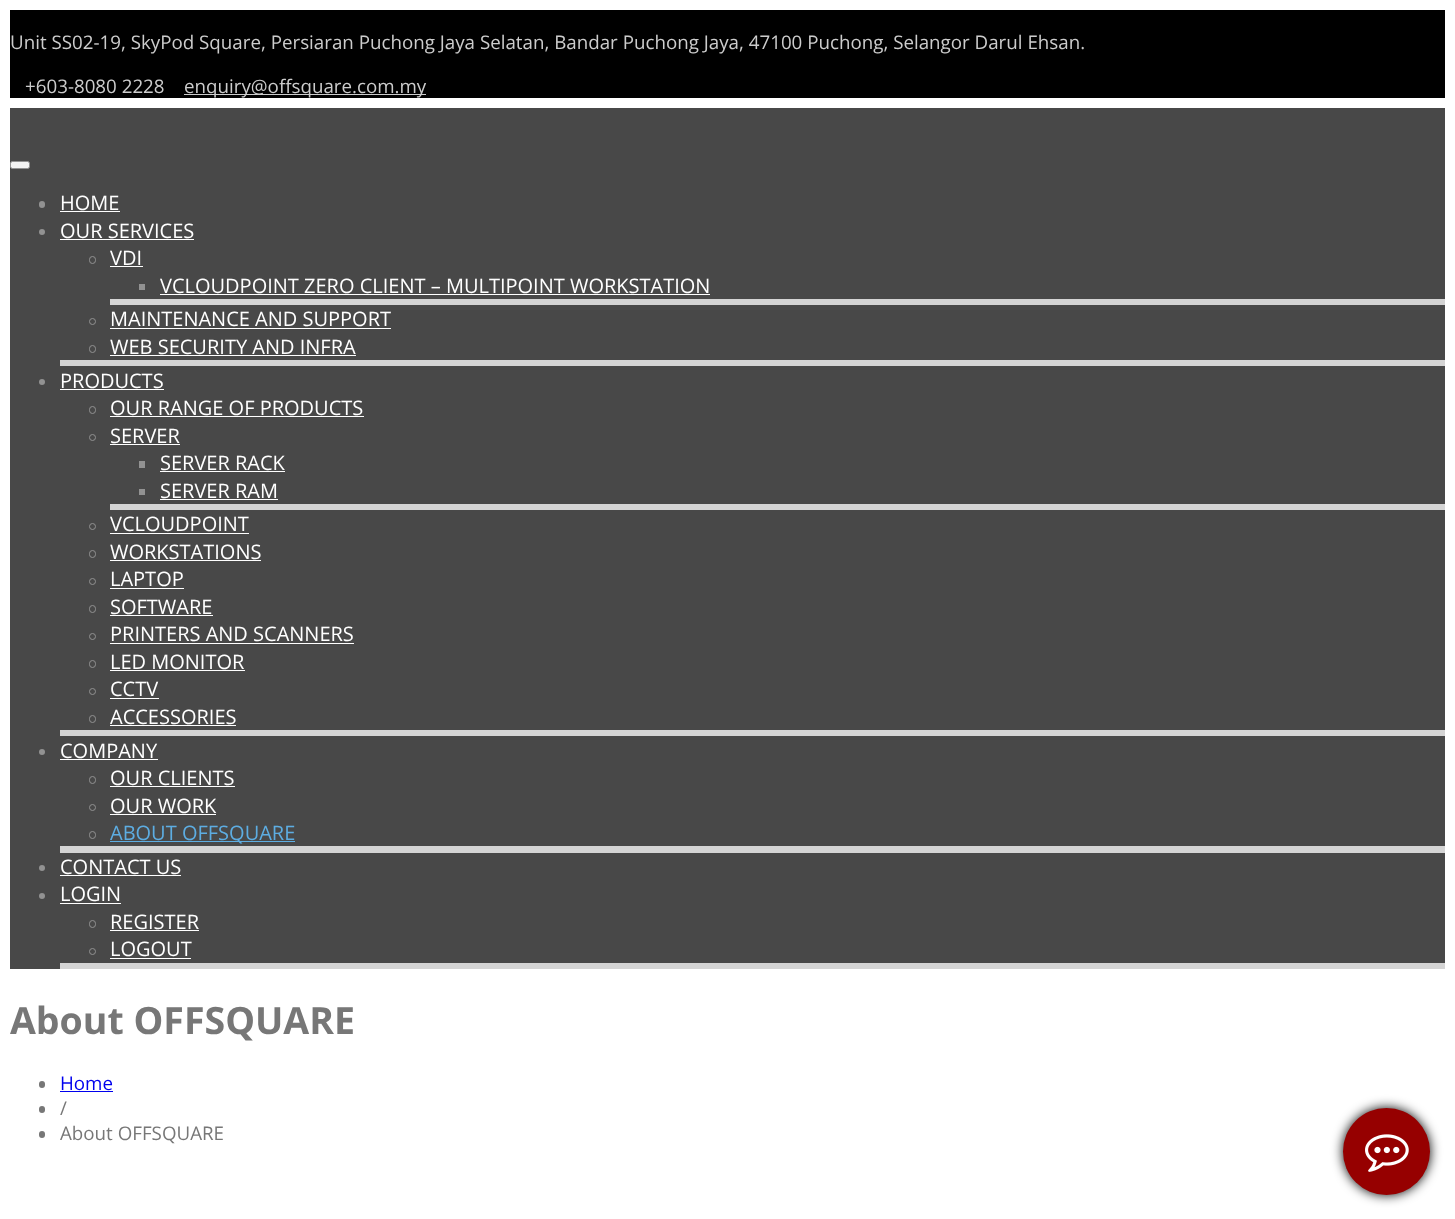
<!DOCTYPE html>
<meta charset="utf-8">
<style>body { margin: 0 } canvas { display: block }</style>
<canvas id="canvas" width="1455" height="1219"></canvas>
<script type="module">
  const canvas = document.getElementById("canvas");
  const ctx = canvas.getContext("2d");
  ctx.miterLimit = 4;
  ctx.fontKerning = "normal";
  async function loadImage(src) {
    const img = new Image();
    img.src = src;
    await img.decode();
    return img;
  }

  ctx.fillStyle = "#ffffff";
  ctx.fillRect(0, 0, 1455, 1219);
  ctx.fillStyle = "#000000";
  ctx.fillRect(10, 10, 1435, 88);
  ctx.font = "18.75px Open Sans";
  ctx.fillStyle = "#cccccc";
  ctx.fillText("Unit SS02-19, SkyPod Square, Persiaran Puchong Jaya Selatan, Bandar Puchong Jaya, 47100 Puchong, Selangor Darul Ehsan.", 10, 49);
  ctx.fillText("+603-8080 2228", 25, 93);
  ctx.fillRect(184, 94, 242, 1);
  ctx.fillText("enquiry@offsquare.com.my", 184, 93);
  ctx.fillStyle = "#484848";
  ctx.fillRect(10, 108, 1435, 861);
  ctx.fillStyle = "#f2f2f2";
  ctx.beginPath();
  ctx.roundRect(10.5, 161.5, 19, 7, 2);
  ctx.fill();
  ctx.strokeStyle = "#919191";
  ctx.stroke();
  ctx.fillStyle = "#929292";
  ctx.beginPath();
  ctx.roundRect(39, 201, 6, 7, 3);
  ctx.fill();
  ctx.font = "20px Open Sans";
  ctx.fillStyle = "#ffffff";
  ctx.fillText("HOME", 60, 210);
  ctx.fillRect(60, 211, 60, 1);
  ctx.fillStyle = "#929292";
  ctx.beginPath();
  ctx.arc(42, 232, 3, 0, Math.PI * 2);
  ctx.fill();
  ctx.fillStyle = "#ffffff";
  ctx.fillText("OUR SERVICES", 60, 238);
  ctx.fillRect(60, 239, 134, 1);
  ctx.fillStyle = "#d4d4d4";
  ctx.fillRect(60, 360, 1385, 6);
  ctx.beginPath();
  ctx.roundRect(89.5, 256.5, 6, 7, 3);
  ctx.strokeStyle = "#929292";
  ctx.stroke();
  ctx.fillStyle = "#ffffff";
  ctx.fillText("VDI", 110, 265);
  ctx.fillRect(110, 266, 33, 1);
  ctx.fillStyle = "#d4d4d4";
  ctx.fillRect(110, 299, 1335, 6);
  ctx.fillStyle = "#929292";
  ctx.fillRect(139, 284, 6, 6);
  ctx.fillStyle = "#ffffff";
  ctx.fillText("VCLOUDPOINT ZERO CLIENT – MULTIPOINT WORKSTATION", 160, 293);
  ctx.fillRect(160, 294, 550, 1);
  ctx.beginPath();
  ctx.arc(92.5, 321.5, 3, 0, Math.PI * 2);
  ctx.stroke();
  ctx.fillText("MAINTENANCE AND SUPPORT", 110, 326);
  ctx.fillRect(110, 328, 281, 1);
  ctx.beginPath();
  ctx.roundRect(89.5, 345.5, 6, 7, 3);
  ctx.stroke();
  ctx.fillText("WEB SECURITY AND INFRA", 110, 354);
  ctx.fillRect(110, 355, 246, 1);
  ctx.fillStyle = "#929292";
  ctx.beginPath();
  ctx.arc(42, 382, 3, 0, Math.PI * 2);
  ctx.fill();
  ctx.fillStyle = "#ffffff";
  ctx.fillText("PRODUCTS", 60, 388);
  ctx.fillRect(60, 389, 104, 1);
  ctx.fillStyle = "#d4d4d4";
  ctx.fillRect(60, 730, 1385, 6);
  ctx.beginPath();
  ctx.roundRect(89.5, 406.5, 6, 7, 3);
  ctx.stroke();
  ctx.fillStyle = "#ffffff";
  ctx.fillText("OUR RANGE OF PRODUCTS", 110, 415);
  ctx.fillRect(110, 416, 254, 1);
  ctx.beginPath();
  ctx.arc(92.5, 437.5, 3, 0, Math.PI * 2);
  ctx.stroke();
  ctx.fillText("SERVER", 110, 443);
  ctx.fillRect(110, 444, 70, 1);
  ctx.fillStyle = "#d4d4d4";
  ctx.fillRect(110, 504, 1335, 6);
  ctx.fillStyle = "#929292";
  ctx.fillRect(139, 461, 6, 7);
  ctx.fillStyle = "#ffffff";
  ctx.fillText("SERVER RACK", 160, 470);
  ctx.fillRect(160, 471, 125, 1);
  ctx.fillStyle = "#929292";
  ctx.fillRect(139, 489, 6, 6);
  ctx.fillStyle = "#ffffff";
  ctx.fillText("SERVER RAM", 160, 498);
  ctx.fillRect(160, 499, 118, 1);
  ctx.beginPath();
  ctx.arc(92.5, 526.5, 3, 0, Math.PI * 2);
  ctx.stroke();
  ctx.fillText("VCLOUDPOINT", 110, 531);
  ctx.fillRect(110, 533, 139, 1);
  ctx.beginPath();
  ctx.roundRect(89.5, 550.5, 6, 7, 3);
  ctx.stroke();
  ctx.fillText("WORKSTATIONS", 110, 559);
  ctx.fillRect(110, 560, 151, 1);
  ctx.beginPath();
  ctx.arc(92.5, 581.5, 3, 0, Math.PI * 2);
  ctx.stroke();
  ctx.fillText("LAPTOP", 110, 586);
  ctx.fillRect(110, 588, 74, 1);
  ctx.beginPath();
  ctx.roundRect(89.5, 605.5, 6, 7, 3);
  ctx.stroke();
  ctx.fillText("SOFTWARE", 110, 614);
  ctx.fillRect(110, 615, 103, 1);
  ctx.beginPath();
  ctx.arc(92.5, 636.5, 3, 0, Math.PI * 2);
  ctx.stroke();
  ctx.fillText("PRINTERS AND SCANNERS", 110, 641);
  ctx.fillRect(110, 643, 244, 1);
  ctx.beginPath();
  ctx.roundRect(89.5, 660.5, 6, 7, 3);
  ctx.stroke();
  ctx.fillText("LED MONITOR", 110, 669);
  ctx.fillRect(110, 670, 135, 1);
  ctx.beginPath();
  ctx.arc(92.5, 691.5, 3, 0, Math.PI * 2);
  ctx.stroke();
  ctx.fillText("CCTV", 110, 696);
  ctx.fillRect(110, 698, 49, 1);
  ctx.beginPath();
  ctx.roundRect(89.5, 715.5, 6, 7, 3);
  ctx.stroke();
  ctx.fillText("ACCESSORIES", 110, 724);
  ctx.fillRect(110, 725, 126, 1);
  ctx.fillStyle = "#929292";
  ctx.beginPath();
  ctx.arc(42, 752, 3, 0, Math.PI * 2);
  ctx.fill();
  ctx.fillStyle = "#ffffff";
  ctx.fillText("COMPANY", 60, 758);
  ctx.fillRect(60, 759, 98, 1);
  ctx.fillStyle = "#d4d4d4";
  ctx.fillRect(60, 846, 1385, 7);
  ctx.beginPath();
  ctx.roundRect(89.5, 776.5, 6, 7, 3);
  ctx.stroke();
  ctx.fillStyle = "#ffffff";
  ctx.fillText("OUR CLIENTS", 110, 785);
  ctx.fillRect(110, 786, 125, 1);
  ctx.beginPath();
  ctx.arc(92.5, 807.5, 3, 0, Math.PI * 2);
  ctx.stroke();
  ctx.fillText("OUR WORK", 110, 813);
  ctx.fillRect(110, 814, 106, 1);
  ctx.beginPath();
  ctx.roundRect(89.5, 831.5, 6, 7, 3);
  ctx.stroke();
  ctx.fillStyle = "#5dade2";
  ctx.fillRect(110, 841, 185, 1);
  ctx.fillText("ABOUT OFFSQUARE", 110, 840);
  ctx.fillStyle = "#929292";
  ctx.beginPath();
  ctx.arc(42, 868, 3, 0, Math.PI * 2);
  ctx.fill();
  ctx.fillStyle = "#ffffff";
  ctx.fillText("CONTACT US", 60, 874);
  ctx.fillRect(60, 875, 121, 1);
  ctx.fillStyle = "#929292";
  ctx.beginPath();
  ctx.arc(42, 896, 3, 0, Math.PI * 2);
  ctx.fill();
  ctx.fillStyle = "#ffffff";
  ctx.fillText("LOGIN", 60, 901);
  ctx.fillRect(60, 903, 61, 1);
  ctx.fillStyle = "#d4d4d4";
  ctx.fillRect(60, 963, 1385, 6);
  ctx.beginPath();
  ctx.roundRect(89.5, 920.5, 6, 7, 3);
  ctx.stroke();
  ctx.fillStyle = "#ffffff";
  ctx.fillText("REGISTER", 110, 929);
  ctx.fillRect(110, 930, 89, 1);
  ctx.beginPath();
  ctx.arc(92.5, 951.5, 3, 0, Math.PI * 2);
  ctx.stroke();
  ctx.fillText("LOGOUT", 110, 956);
  ctx.fillRect(110, 958, 81, 1);
  ctx.font = "bold 37.5px Open Sans";
  ctx.fillStyle = "#777777";
  ctx.fillText("About OFFSQUARE", 10, 1034);
  ctx.beginPath();
  ctx.roundRect(39, 1081, 6, 7, 3);
  ctx.fill();
  ctx.font = "18.75px Open Sans";
  ctx.fillStyle = "#0000ee";
  ctx.fillText("Home", 60, 1090);
  ctx.fillRect(60, 1091, 53, 1);
  ctx.fillStyle = "#777777";
  ctx.beginPath();
  ctx.roundRect(39, 1106, 6, 7, 3);
  ctx.fill();
  ctx.fillText("/", 60, 1115);
  ctx.beginPath();
  ctx.roundRect(39, 1131, 6, 7, 3);
  ctx.fill();
  ctx.fillText("About OFFSQUARE", 60, 1140);
  ctx.fillStyle = "#000000";
  ctx.filter = "blur(6px)";
  ctx.beginPath();
  ctx.roundRect(1343, 1108, 87, 87, 43.5);
  ctx.fill();
  ctx.filter = "none";
  ctx.fillStyle = "#960000";
  ctx.beginPath();
  ctx.arc(1386.5, 1151.5, 43.5, 0, Math.PI * 2);
  ctx.fill();
  ctx.drawImage(await loadImage("img1.png"), 1365, 1134, 44, 38);
</script>
